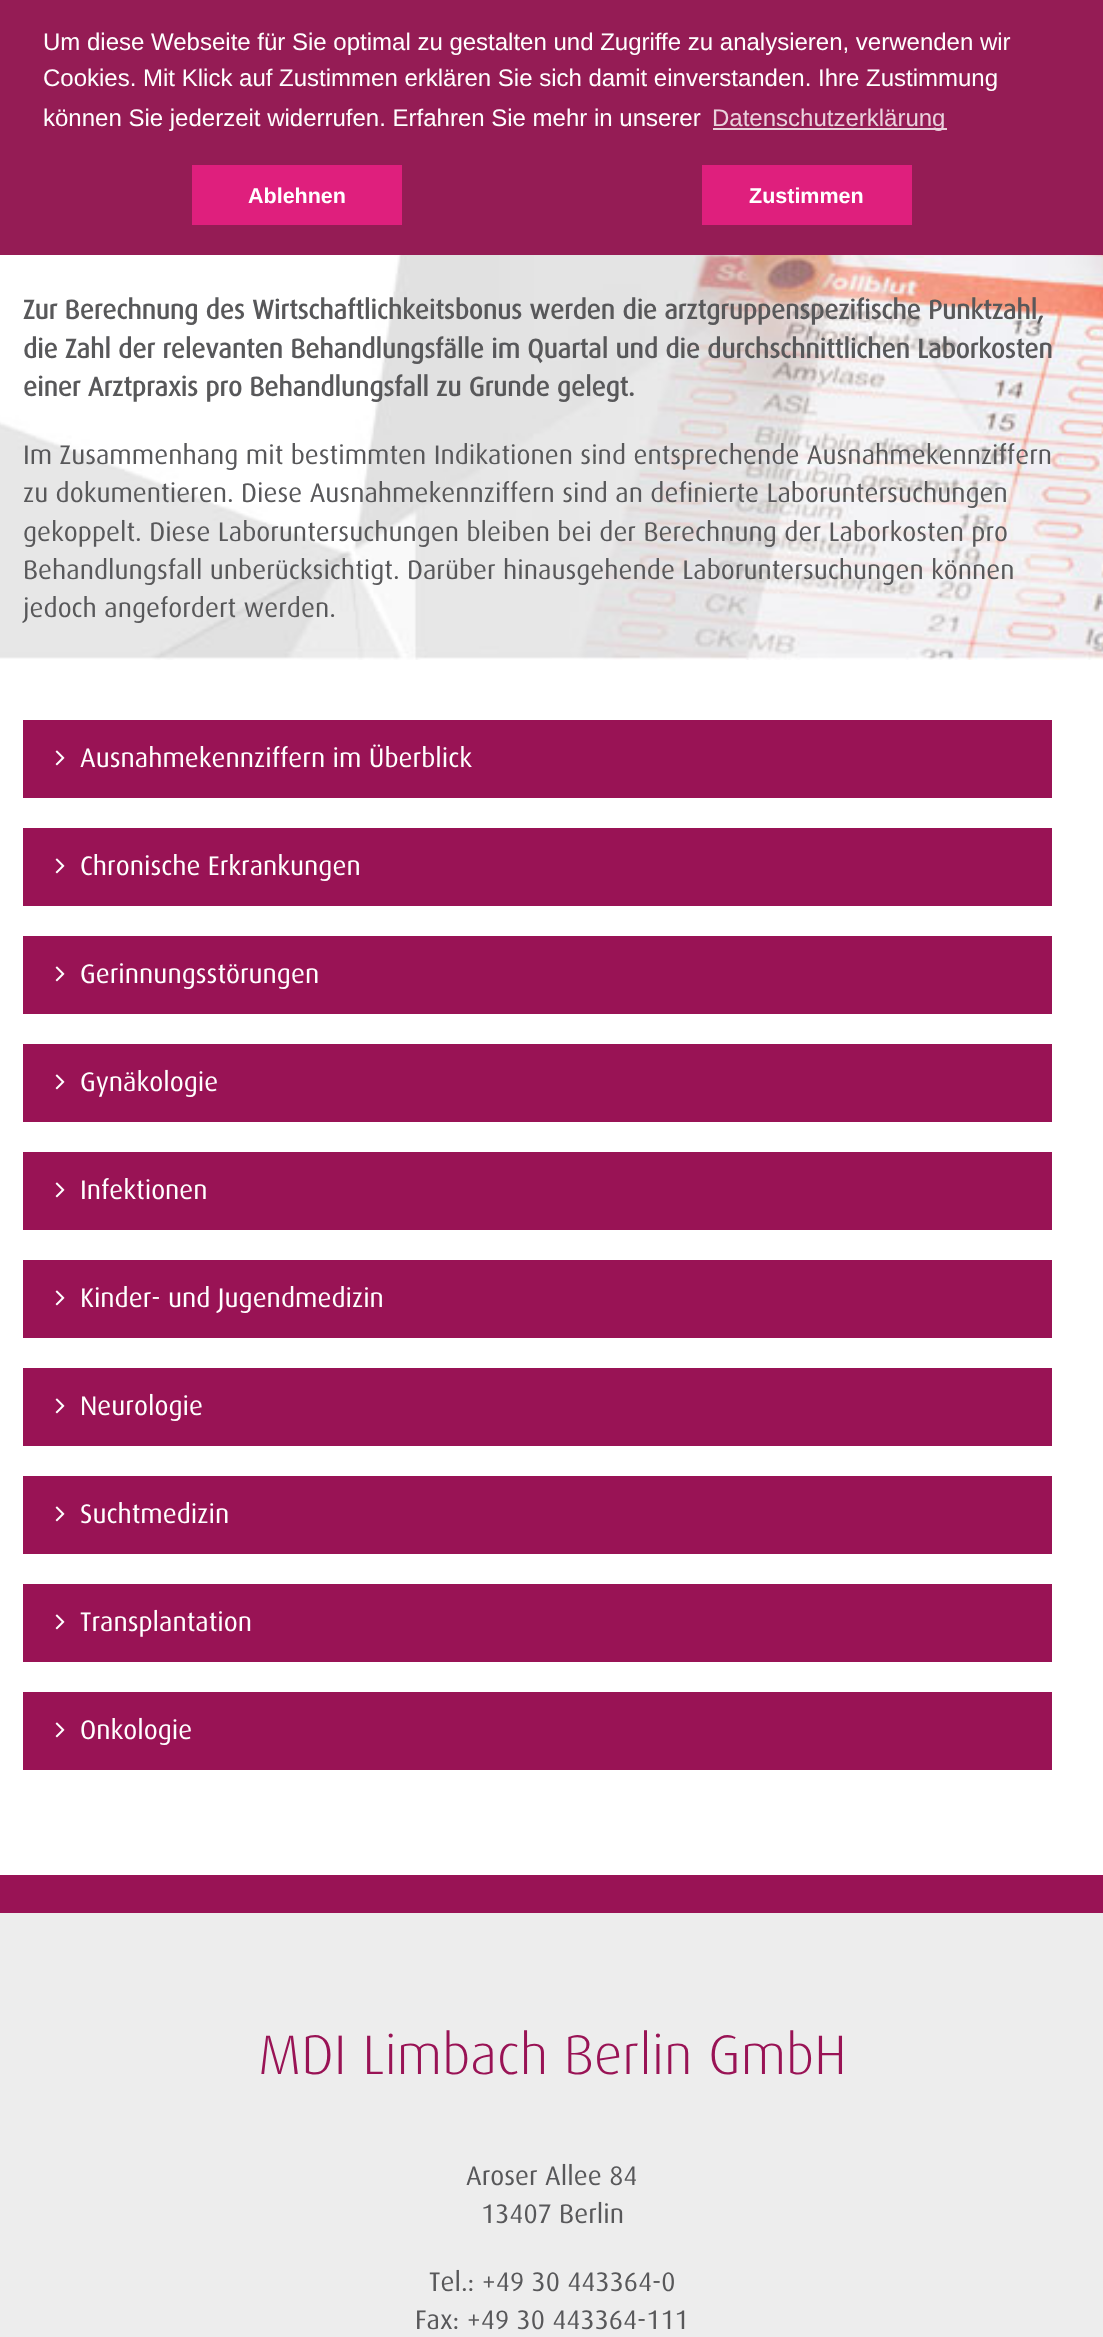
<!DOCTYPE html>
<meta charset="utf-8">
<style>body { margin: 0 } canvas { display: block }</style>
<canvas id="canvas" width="1103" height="2337"></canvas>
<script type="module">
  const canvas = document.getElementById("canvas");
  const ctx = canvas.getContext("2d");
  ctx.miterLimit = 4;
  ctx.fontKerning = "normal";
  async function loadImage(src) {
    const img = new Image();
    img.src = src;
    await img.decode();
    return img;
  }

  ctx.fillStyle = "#ffffff";
  ctx.fillRect(0, 0, 1103, 2337);
  ctx.fillStyle = "#951c55";
  ctx.fillRect(0, 0, 1103, 255);
  ctx.font = "24px Liberation Sans";
  ctx.fillStyle = "#ffffff";
  ctx.fillText("Um diese Webseite für Sie optimal zu gestalten und Zugriffe zu analysieren, verwenden wir", 43, 50);
  ctx.fillText("Cookies. Mit Klick auf Zustimmen erklären Sie sich damit einverstanden. Ihre Zustimmung", 43, 86);
  ctx.fillText("können Sie jederzeit widerrufen. Erfahren Sie mehr in unserer", 43, 126);
  ctx.fillStyle = "#ead2dd";
  ctx.fillRect(713, 128, 234, 2);
  ctx.fillText("Datenschutzerklärung", 712, 126);
  ctx.fillStyle = "#df1f7d";
  ctx.fillRect(192, 165, 210, 60);
  ctx.font = "bold 21.5px Liberation Sans";
  ctx.fillStyle = "#ffffff";
  ctx.fillText("Ablehnen", 248, 203);
  ctx.fillStyle = "#df1f7d";
  ctx.fillRect(702, 165, 210, 60);
  ctx.fillStyle = "#ffffff";
  ctx.fillText("Zustimmen", 749, 203);
  ctx.drawImage(await loadImage("img1.png"), 0, 255, 1103, 405);
  ctx.font = "bold 26.8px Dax";
  ctx.fillStyle = "#58585a";
  ctx.fillText("Zur Berechnung des Wirtschaftlichkeitsbonus werden die arztgruppenspezifische Punktzahl,", 23, 319);
  ctx.fillText("die Zahl der relevanten Behandlungsfälle im Quartal und die durchschnittlichen Laborkosten", 23, 358);
  ctx.fillText("einer Arztpraxis pro Behandlungsfall zu Grunde gelegt.", 23, 396);
  ctx.font = "26.8px Dax";
  ctx.fillText("Im Zusammenhang mit bestimmten Indikationen sind entsprechende Ausnahmekennziffern", 23, 464);
  ctx.fillText("zu dokumentieren. Diese Ausnahmekennziffern sind an definierte Laboruntersuchungen", 23, 502);
  ctx.fillText("gekoppelt. Diese Laboruntersuchungen bleiben bei der Berechnung der Laborkosten pro", 23, 541);
  ctx.fillText("Behandlungsfall unberücksichtigt. Darüber hinausgehende Laboruntersuchungen können", 23, 579);
  ctx.fillText("jedoch angefordert werden.", 23, 617);
  ctx.fillStyle = "#991355";
  ctx.fillRect(23, 720, 1029, 78);
  ctx.drawImage(await loadImage("img2.png"), 55, 750, 10, 16);
  ctx.fillStyle = "#ffffff";
  ctx.fillText("Ausnahmekennziffern im Überblick", 80, 767);
  ctx.fillStyle = "#991355";
  ctx.fillRect(23, 828, 1029, 78);
  ctx.drawImage(await loadImage("img2.png"), 55, 858, 10, 16);
  ctx.fillStyle = "#ffffff";
  ctx.fillText("Chronische Erkrankungen", 80, 875);
  ctx.fillStyle = "#991355";
  ctx.fillRect(23, 936, 1029, 78);
  ctx.drawImage(await loadImage("img2.png"), 55, 966, 10, 16);
  ctx.fillStyle = "#ffffff";
  ctx.fillText("Gerinnungsstörungen", 80, 983);
  ctx.fillStyle = "#991355";
  ctx.fillRect(23, 1044, 1029, 78);
  ctx.drawImage(await loadImage("img2.png"), 55, 1074, 10, 16);
  ctx.fillStyle = "#ffffff";
  ctx.fillText("Gynäkologie", 80, 1091);
  ctx.fillStyle = "#991355";
  ctx.fillRect(23, 1152, 1029, 78);
  ctx.drawImage(await loadImage("img2.png"), 55, 1182, 10, 16);
  ctx.fillStyle = "#ffffff";
  ctx.fillText("Infektionen", 80, 1199);
  ctx.fillStyle = "#991355";
  ctx.fillRect(23, 1260, 1029, 78);
  ctx.drawImage(await loadImage("img2.png"), 55, 1290, 10, 16);
  ctx.fillStyle = "#ffffff";
  ctx.fillText("Kinder- und Jugendmedizin", 80, 1307);
  ctx.fillStyle = "#991355";
  ctx.fillRect(23, 1368, 1029, 78);
  ctx.drawImage(await loadImage("img2.png"), 55, 1398, 10, 16);
  ctx.fillStyle = "#ffffff";
  ctx.fillText("Neurologie", 80, 1415);
  ctx.fillStyle = "#991355";
  ctx.fillRect(23, 1476, 1029, 78);
  ctx.drawImage(await loadImage("img2.png"), 55, 1506, 10, 16);
  ctx.fillStyle = "#ffffff";
  ctx.fillText("Suchtmedizin", 80, 1523);
  ctx.fillStyle = "#991355";
  ctx.fillRect(23, 1584, 1029, 78);
  ctx.drawImage(await loadImage("img2.png"), 55, 1614, 10, 16);
  ctx.fillStyle = "#ffffff";
  ctx.fillText("Transplantation", 80, 1631);
  ctx.fillStyle = "#991355";
  ctx.fillRect(23, 1692, 1029, 78);
  ctx.drawImage(await loadImage("img2.png"), 55, 1722, 10, 16);
  ctx.fillStyle = "#ffffff";
  ctx.fillText("Onkologie", 80, 1739);
  ctx.fillStyle = "#991355";
  ctx.fillRect(0, 1875, 1103, 38);
  ctx.fillStyle = "#ededed";
  ctx.fillRect(0, 1913, 1103, 424);
  ctx.font = "300 55.75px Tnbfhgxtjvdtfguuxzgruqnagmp";
  ctx.fillStyle = "#991355";
  ctx.fillText("MDI Limbach Berlin GmbH", 258, 2074);
  ctx.font = "26.8px Dax";
  ctx.fillStyle = "#58585a";
  ctx.fillText("Aroser Allee 84", 466, 2185);
  ctx.fillText("13407 Berlin", 481, 2223);
  ctx.fillText("Tel.: +49 30 443364-0", 429, 2291);
  ctx.fillText("Fax: +49 30 443364-111", 415, 2329);
</script>
